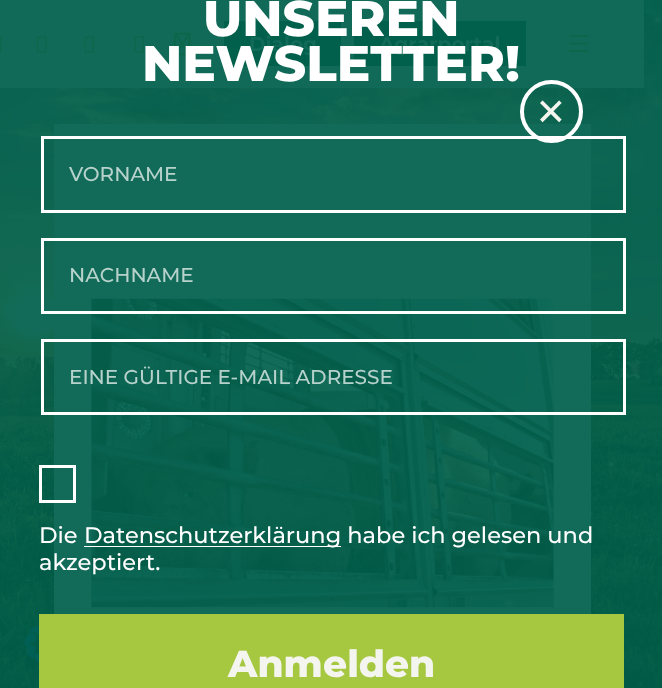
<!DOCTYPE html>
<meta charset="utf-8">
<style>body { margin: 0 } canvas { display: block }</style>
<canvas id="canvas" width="662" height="688"></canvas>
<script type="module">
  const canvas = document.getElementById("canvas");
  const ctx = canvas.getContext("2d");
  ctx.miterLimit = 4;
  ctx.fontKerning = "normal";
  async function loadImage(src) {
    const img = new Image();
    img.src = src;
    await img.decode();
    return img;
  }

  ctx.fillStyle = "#ffffff";
  ctx.fillRect(0, 0, 662, 688);
  ctx.drawImage(await loadImage("img1.png"), 0, 0, 662, 688);
  ctx.fillStyle = "#116a57";
  ctx.fillRect(0, 0, 644, 88);
  ctx.fillStyle = "#00604b";
  ctx.fillRect(224, 21, 117, 45);
  ctx.fillRect(354, 21, 172, 45);
  ctx.font = "800 50px Montserrat";
  ctx.fillStyle = "#ffffff";
  ctx.fillText("UNSEREN", 203, 36);
  ctx.drawImage(await loadImage("img5.png"), 173, 32, 18, 24);
  ctx.font = "bold 20px Montserrat";
  ctx.fillStyle = "#126b58";
  ctx.fillText("Dialog", 249, 51);
  ctx.fillText("Agrarportal", 379, 51);
  ctx.font = "800 50px Montserrat";
  ctx.fillStyle = "#ffffff";
  ctx.fillText("NEWSLETTER!", 142, 81);
  ctx.fillStyle = "#126b58";
  ctx.fillRect(54, 124, 537, 490);
  ctx.strokeStyle = "#ffffff";
  ctx.lineWidth = 3;
  ctx.strokeRect(42.5, 137.5, 582, 74);
  ctx.beginPath();
  ctx.arc(551.5, 111.5, 29.5, 0, Math.PI * 2);
  ctx.lineWidth = 4;
  ctx.stroke();
  ctx.font = "62px Montserrat";
  ctx.fillStyle = "#f4f5ef";
  ctx.fillText("×", 533, 133);
  ctx.font = "500 20px Montserrat";
  ctx.fillStyle = "#b7d2cc";
  ctx.fillText("VORNAME", 69, 181);
  ctx.drawImage(await loadImage("img7.png"), 91, 298, 463, 310);
  ctx.lineWidth = 3;
  ctx.strokeRect(42.5, 239.5, 582, 73);
  ctx.fillText("NACHNAME", 69, 282);
  ctx.strokeRect(42.5, 340.5, 582, 73);
  ctx.fillText("EINE GÜLTIGE E-MAIL ADRESSE", 69, 384);
  ctx.strokeRect(40.5, 466.5, 34, 35);
  ctx.font = "500 22.5px Montserrat";
  ctx.fillStyle = "#ffffff";
  ctx.fillText("Die", 39, 543);
  ctx.fillRect(84, 546, 257, 1);
  ctx.fillText("Datenschutzerklärung habe ich gelesen und", 84, 543);
  ctx.fillText("akzeptiert.", 39, 570);
  ctx.fillStyle = "#a6c740";
  ctx.fillRect(39, 614, 585, 74);
  ctx.font = "800 37.5px Montserrat";
  ctx.fillStyle = "#f4f5ef";
  ctx.fillText("Anmelden", 228, 677);
  ctx.drawImage(await loadImage("img2.png"), 0, 36, 2, 17);
  ctx.drawImage(await loadImage("img3.png"), 37, 36, 10, 17);
  ctx.drawImage(await loadImage("img4.png"), 84, 36, 10, 17);
  ctx.drawImage(await loadImage("img4.png"), 134, 36, 10, 17);
  ctx.drawImage(await loadImage("img6.png"), 569, 35, 20, 17);
  ctx.drawImage(await loadImage("img8.png"), 24, 621, 15, 46);
</script>
